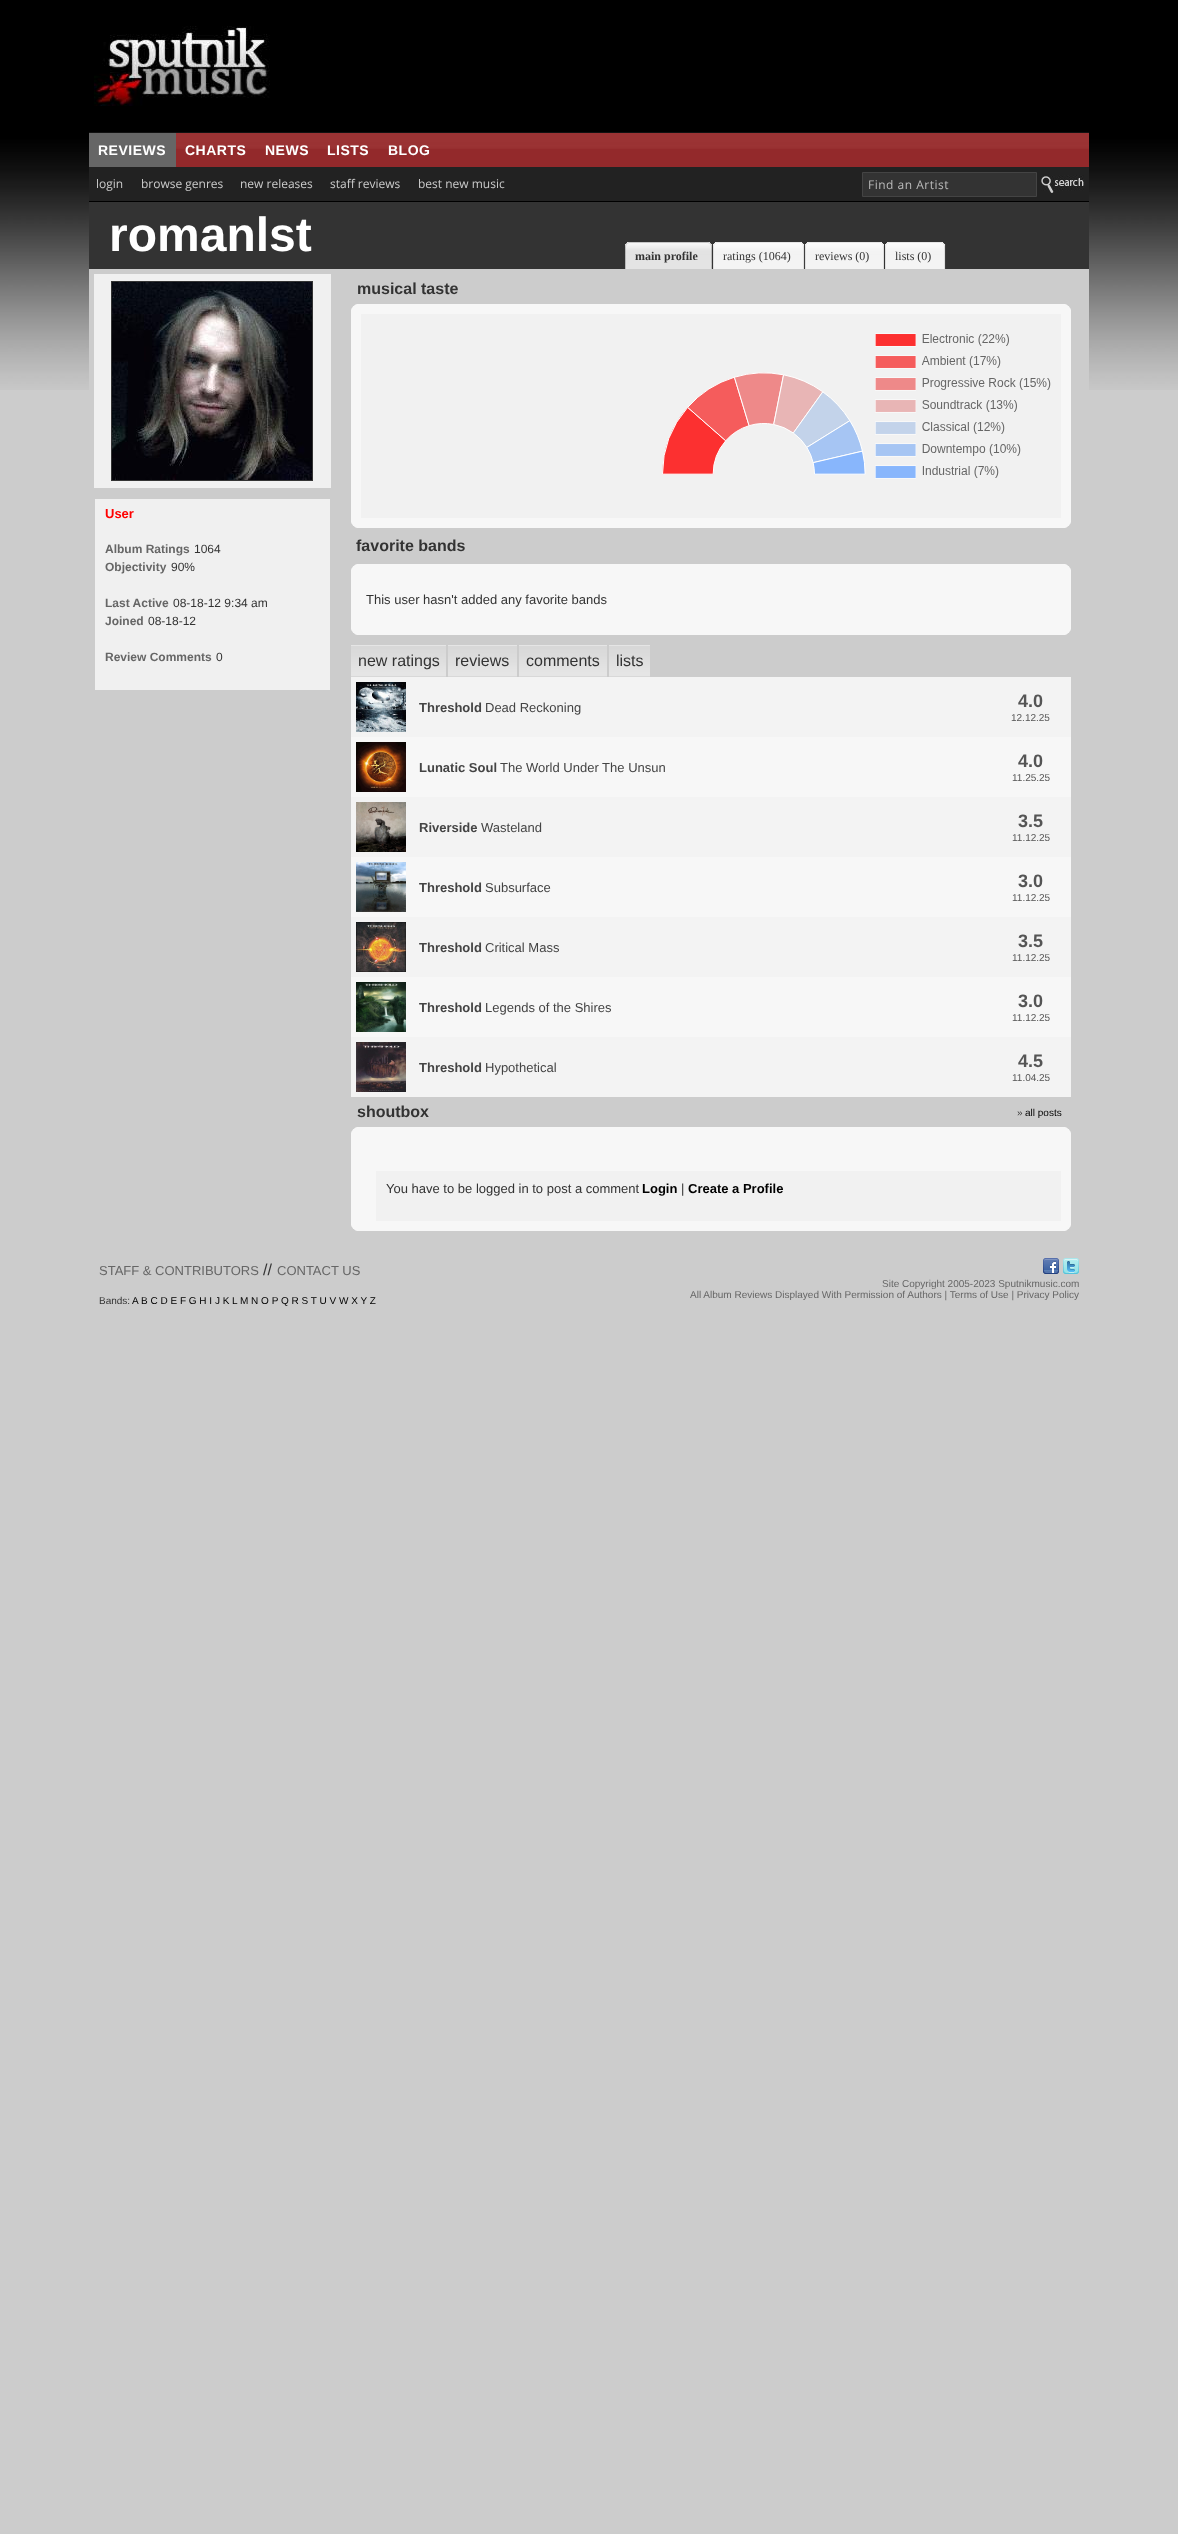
<!DOCTYPE html>
<meta charset="utf-8">
<style>body { margin: 0 } canvas { display: block }</style>
<canvas id="canvas" width="1178" height="2534"></canvas>
<img id="img1" src="images/1.png" hidden>
<img id="img2" src="images/2.png" hidden>
<img id="img3" src="images/3.png" hidden>
<img id="img4" src="images/4.png" hidden>
<img id="img5" src="images/5.png" hidden>
<img id="img6" src="images/6.png" hidden>
<img id="img7" src="images/7.png" hidden>
<img id="img8" src="images/8.png" hidden>
<img id="img9" src="images/9.png" hidden>
<img id="img10" src="images/10.png" hidden>
<img id="img11" src="images/11.png" hidden>
<img id="img12" src="images/12.png" hidden>
<img id="img13" src="images/13.png" hidden>
<img id="img14" src="images/14.png" hidden>
<img id="img15" src="images/15.png" hidden>
<img id="img16" src="images/16.png" hidden>
<img id="img17" src="images/17.png" hidden>
<img id="img18" src="images/18.png" hidden>
<img id="img19" src="images/19.png" hidden>
<img id="img20" src="images/20.png" hidden>
<img id="img21" src="images/21.png" hidden>
<img id="img22" src="images/22.png" hidden>
<img id="img23" src="images/23.png" hidden>
<img id="img24" src="images/24.png" hidden>
<img id="img25" src="images/25.png" hidden>
<img id="img26" src="images/26.png" hidden>
<img id="img27" src="images/27.png" hidden>
<img id="img28" src="images/28.png" hidden>
<img id="img29" src="images/29.png" hidden>
<img id="img30" src="images/30.png" hidden>
<script>
window.onload = function () {
    const canvas = document.getElementById('canvas');
    const context = canvas.getContext('2d');
    context.miterLimit = 4;
    context.fontKerning = 'normal';

    context.fillStyle = 'rgb(204, 204, 204)';
    context.fillRect(0, 0, 1178, 2534);
    context.drawImage(document.getElementById('img1'), 0, 0, 1178, 390);
    context.drawImage(document.getElementById('img2'), 94, 26, 176, 80);
    context.drawImage(document.getElementById('img3'), 176, 133, 613, 34);
    context.fillStyle = 'rgb(17, 17, 17)';
    context.fillRect(89, 132, 1000, 1);
    context.fillStyle = 'rgb(102, 102, 102)';
    context.fillRect(89, 133, 87, 34);
    context.drawImage(document.getElementById('img4'), 789, 133, 300, 34);
    context.fillStyle = 'rgb(34, 34, 34)';
    context.fillRect(89, 167, 1000, 34);
    context.fillStyle = 'rgb(51, 51, 51)';
    context.beginPath();
    context.rect(862.5, 172.5, 174, 24);
    context.fill();
    context.strokeStyle = 'rgb(68, 68, 68)';
    context.stroke();
    context.drawImage(document.getElementById('img5'), 1041, 175, 43, 18);
    context.fillStyle = 'rgb(0, 0, 0)';
    context.fillRect(89, 201, 1000, 1);
    context.fillStyle = 'rgb(204, 204, 204)';
    context.fillRect(89, 269, 1000, 121);
    context.fillStyle = 'rgb(51, 51, 51)';
    context.fillRect(89, 202, 1000, 67);
    context.drawImage(document.getElementById('img6'), 625, 242, 4, 27);
    context.drawImage(document.getElementById('img7'), 629, 242, 83, 27);
    context.drawImage(document.getElementById('img8'), 713, 242, 4, 27);
    context.drawImage(document.getElementById('img9'), 717, 242, 88, 27);
    context.drawImage(document.getElementById('img8'), 805, 242, 4, 27);
    context.drawImage(document.getElementById('img10'), 809, 242, 75, 27);
    context.drawImage(document.getElementById('img8'), 885, 242, 4, 27);
    context.drawImage(document.getElementById('img11'), 889, 242, 57, 27);
    context.fillStyle = 'rgb(240, 240, 240)';
    context.fillRect(94, 274, 237, 214);
    context.strokeStyle = 'rgb(51, 51, 51)';
    context.strokeRect(111.5, 281.5, 201, 199);
    context.drawImage(document.getElementById('img12'), 112, 282, 200, 198);
    context.fillRect(95, 499, 235, 191);
    context.fillStyle = 'rgb(247, 247, 247)';
    context.fillRect(351, 304, 720, 224);
    context.drawImage(document.getElementById('img13'), 1065, 304, 6, 6);
    context.drawImage(document.getElementById('img14'), 351, 304, 6, 6);
    context.fillStyle = 'rgb(241, 241, 241)';
    context.fillRect(361, 314, 700, 204);
    context.drawImage(document.getElementById('img15'), 662, 333, 389, 146);
    context.drawImage(document.getElementById('img16'), 1065, 522, 6, 6);
    context.drawImage(document.getElementById('img17'), 351, 522, 6, 6);
    context.fillStyle = 'rgb(247, 247, 247)';
    context.fillRect(351, 564, 720, 71);
    context.drawImage(document.getElementById('img13'), 1065, 564, 6, 6);
    context.drawImage(document.getElementById('img14'), 351, 564, 6, 6);
    context.drawImage(document.getElementById('img16'), 1065, 629, 6, 6);
    context.drawImage(document.getElementById('img17'), 351, 629, 6, 6);
    context.drawImage(document.getElementById('img18'), 351, 645, 95, 32);
    context.drawImage(document.getElementById('img19'), 448, 645, 69, 32);
    context.drawImage(document.getElementById('img20'), 519, 645, 88, 32);
    context.drawImage(document.getElementById('img21'), 609, 645, 41, 32);
    context.fillRect(351, 737, 720, 300);
    context.fillStyle = 'rgb(243, 243, 243)';
    context.fillRect(351, 677, 720, 60);
    context.drawImage(document.getElementById('img22'), 356, 682, 50, 50);
    context.drawImage(document.getElementById('img23'), 356, 742, 50, 50);
    context.fillRect(351, 797, 720, 60);
    context.drawImage(document.getElementById('img24'), 356, 802, 50, 50);
    context.drawImage(document.getElementById('img25'), 356, 862, 50, 50);
    context.fillRect(351, 917, 720, 60);
    context.drawImage(document.getElementById('img26'), 356, 922, 50, 50);
    context.drawImage(document.getElementById('img27'), 356, 982, 50, 50);
    context.fillRect(351, 1037, 720, 60);
    context.drawImage(document.getElementById('img28'), 356, 1042, 50, 50);
    context.fillStyle = 'rgb(247, 247, 247)';
    context.fillRect(351, 1127, 720, 104);
    context.drawImage(document.getElementById('img13'), 1065, 1127, 6, 6);
    context.drawImage(document.getElementById('img14'), 351, 1127, 6, 6);
    context.fillStyle = 'rgb(241, 241, 241)';
    context.fillRect(376, 1171, 685, 50);
    context.drawImage(document.getElementById('img16'), 1065, 1225, 6, 6);
    context.drawImage(document.getElementById('img17'), 351, 1225, 6, 6);
    context.drawImage(document.getElementById('img29'), 1043, 1258, 16, 16);
    context.drawImage(document.getElementById('img30'), 1063, 1258, 16, 16);
    context.letterSpacing = '0.5px';
    context.font = 'bold 14px Liberation Sans';
    context.fillStyle = 'rgb(255, 255, 255)';
    context.fillText('REVIEWS', 98, 155);
    context.fillText('CHARTS', 185, 155);
    context.fillText('NEWS', 265, 155);
    context.fillText('LISTS', 327, 155);
    context.fillText('BLOG', 388, 155);
    context.letterSpacing = '0px';
    context.font = '12px Open Sans';
    context.fillStyle = 'rgb(204, 204, 204)';
    context.fillText('login', 96, 188);
    context.fillText('browse genres', 141, 188);
    context.fillText('new releases', 240, 188);
    context.fillText('staff reviews', 330, 188);
    context.fillText('best new music', 418, 188);
    context.letterSpacing = '0.5px';
    context.fillStyle = 'rgb(187, 187, 187)';
    context.fillText('Find an Artist', 868, 189);
    context.letterSpacing = '0px';
    context.font = 'bold 48px Liberation Sans';
    context.fillStyle = 'rgb(255, 255, 255)';
    context.fillText('romanlst', 109, 251);
    context.font = 'bold 12px Liberation Serif';
    context.fillStyle = 'rgb(51, 51, 51)';
    context.fillText('main profile', 635, 260);
    context.font = '12px Liberation Serif';
    context.fillText('ratings (1064)', 723, 260);
    context.fillText('reviews (0)', 815, 260);
    context.fillText('lists (0)', 895, 260);
    context.font = 'bold 13px Liberation Sans';
    context.fillStyle = 'rgb(255, 0, 0)';
    context.fillText('User', 105, 518);
    context.font = 'bold 12px Liberation Sans';
    context.fillStyle = 'rgb(102, 102, 102)';
    context.fillText('Album Ratings', 105, 553);
    context.font = '12px Liberation Sans';
    context.fillStyle = 'rgb(51, 51, 51)';
    context.fillText('1064', 194, 553);
    context.font = 'bold 12px Liberation Sans';
    context.fillStyle = 'rgb(102, 102, 102)';
    context.fillText('Objectivity', 105, 571);
    context.font = '12px Liberation Sans';
    context.fillStyle = 'rgb(51, 51, 51)';
    context.fillText('90%', 171, 571);
    context.font = 'bold 12px Liberation Sans';
    context.fillStyle = 'rgb(102, 102, 102)';
    context.fillText('Last Active', 105, 607);
    context.font = '12px Liberation Sans';
    context.fillStyle = 'rgb(51, 51, 51)';
    context.fillText('08-18-12 9:34 am', 173, 607);
    context.font = 'bold 12px Liberation Sans';
    context.fillStyle = 'rgb(102, 102, 102)';
    context.fillText('Joined', 105, 625);
    context.font = '12px Liberation Sans';
    context.fillStyle = 'rgb(51, 51, 51)';
    context.fillText('08-18-12', 148, 625);
    context.font = 'bold 12px Liberation Sans';
    context.fillStyle = 'rgb(102, 102, 102)';
    context.fillText('Review Comments', 105, 661);
    context.font = '12px Liberation Sans';
    context.fillStyle = 'rgb(51, 51, 51)';
    context.fillText('0', 216, 661);
    context.font = 'bold 16px Liberation Sans';
    context.fillText('musical taste', 357, 294);
    context.fillText('favorite bands', 356, 551);
    context.font = '13px Liberation Sans';
    context.fillText('This user hasn\'t added any favorite bands', 366, 604);
    context.font = '16px Liberation Sans';
    context.fillText('new ratings', 358, 666);
    context.fillText('reviews', 455, 666);
    context.fillText('comments', 526, 666);
    context.fillText('lists', 616, 666);
    context.font = 'bold 13px Liberation Sans';
    context.fillStyle = 'rgb(68, 68, 68)';
    context.fillText('Threshold', 419, 712);
    context.font = '13px Liberation Sans';
    context.fillText('Dead Reckoning', 485, 712);
    context.font = 'bold 18px Liberation Sans';
    context.fillStyle = 'rgb(85, 85, 85)';
    context.fillText('4.0', 1018, 707);
    context.font = '10px Liberation Sans';
    context.fillText('12.12.25', 1011, 721);
    context.font = 'bold 13px Liberation Sans';
    context.fillStyle = 'rgb(68, 68, 68)';
    context.fillText('Lunatic Soul', 419, 772);
    context.font = '13px Liberation Sans';
    context.fillText('The World Under The Unsun', 500, 772);
    context.font = 'bold 18px Liberation Sans';
    context.fillStyle = 'rgb(85, 85, 85)';
    context.fillText('4.0', 1018, 767);
    context.font = '10px Liberation Sans';
    context.fillText('11.25.25', 1012, 781);
    context.font = 'bold 13px Liberation Sans';
    context.fillStyle = 'rgb(68, 68, 68)';
    context.fillText('Riverside', 419, 832);
    context.font = '13px Liberation Sans';
    context.fillText('Wasteland', 481, 832);
    context.font = 'bold 18px Liberation Sans';
    context.fillStyle = 'rgb(85, 85, 85)';
    context.fillText('3.5', 1018, 827);
    context.font = '10px Liberation Sans';
    context.fillText('11.12.25', 1012, 841);
    context.font = 'bold 13px Liberation Sans';
    context.fillStyle = 'rgb(68, 68, 68)';
    context.fillText('Threshold', 419, 892);
    context.font = '13px Liberation Sans';
    context.fillText('Subsurface', 485, 892);
    context.font = 'bold 18px Liberation Sans';
    context.fillStyle = 'rgb(85, 85, 85)';
    context.fillText('3.0', 1018, 887);
    context.font = '10px Liberation Sans';
    context.fillText('11.12.25', 1012, 901);
    context.font = 'bold 13px Liberation Sans';
    context.fillStyle = 'rgb(68, 68, 68)';
    context.fillText('Threshold', 419, 952);
    context.font = '13px Liberation Sans';
    context.fillText('Critical Mass', 485, 952);
    context.font = 'bold 18px Liberation Sans';
    context.fillStyle = 'rgb(85, 85, 85)';
    context.fillText('3.5', 1018, 947);
    context.font = '10px Liberation Sans';
    context.fillText('11.12.25', 1012, 961);
    context.font = 'bold 13px Liberation Sans';
    context.fillStyle = 'rgb(68, 68, 68)';
    context.fillText('Threshold', 419, 1012);
    context.font = '13px Liberation Sans';
    context.fillText('Legends of the Shires', 485, 1012);
    context.font = 'bold 18px Liberation Sans';
    context.fillStyle = 'rgb(85, 85, 85)';
    context.fillText('3.0', 1018, 1007);
    context.font = '10px Liberation Sans';
    context.fillText('11.12.25', 1012, 1021);
    context.font = 'bold 13px Liberation Sans';
    context.fillStyle = 'rgb(68, 68, 68)';
    context.fillText('Threshold', 419, 1072);
    context.font = '13px Liberation Sans';
    context.fillText('Hypothetical', 485, 1072);
    context.font = 'bold 18px Liberation Sans';
    context.fillStyle = 'rgb(85, 85, 85)';
    context.fillText('4.5', 1018, 1067);
    context.font = '10px Liberation Sans';
    context.fillText('11.04.25', 1012, 1081);
    context.font = 'bold 16px Liberation Sans';
    context.fillStyle = 'rgb(51, 51, 51)';
    context.fillText('shoutbox', 357, 1117);
    context.font = '10px Liberation Sans';
    context.fillText('»', 1017, 1116);
    context.fillStyle = 'rgb(0, 0, 0)';
    context.fillText('all posts', 1025, 1116);
    context.font = '13px Liberation Sans';
    context.fillStyle = 'rgb(51, 51, 51)';
    context.fillText('You have to be logged in to post a comment', 386, 1193);
    context.font = 'bold 13px Liberation Sans';
    context.fillStyle = 'rgb(0, 0, 0)';
    context.fillText('Login', 642, 1193);
    context.font = '13px Liberation Sans';
    context.fillStyle = 'rgb(51, 51, 51)';
    context.fillText('|', 681, 1193);
    context.font = 'bold 13px Liberation Sans';
    context.fillStyle = 'rgb(0, 0, 0)';
    context.fillText('Create a Profile', 688, 1193);
    context.font = '13px Liberation Sans';
    context.fillStyle = 'rgb(102, 102, 102)';
    context.fillText('STAFF & CONTRIBUTORS', 99, 1275);
    context.font = '16px Liberation Sans';
    context.fillStyle = 'rgb(51, 51, 51)';
    context.fillText('//', 263, 1275);
    context.font = '13px Liberation Sans';
    context.fillStyle = 'rgb(102, 102, 102)';
    context.fillText('CONTACT US', 277, 1275);
    context.font = '10px Liberation Sans';
    context.fillStyle = 'rgb(51, 51, 51)';
    context.fillText('Bands:', 99, 1304);
    context.fillStyle = 'rgb(0, 0, 0)';
    context.fillText('A', 132, 1304);
    context.fillText('B C D E F G H I J K L', 141, 1304);
    context.fillText('M N O P Q R S T U V W X Y Z', 240, 1304);
    context.fillStyle = 'rgb(102, 102, 102)';
    context.fillText('Site Copyright 2005-2023 Sputnikmusic.com', 882, 1287);
    context.fillText('All Album Reviews Displayed With Permission of Authors | Terms of Use | Privacy Policy', 690, 1298);
};
</script>
